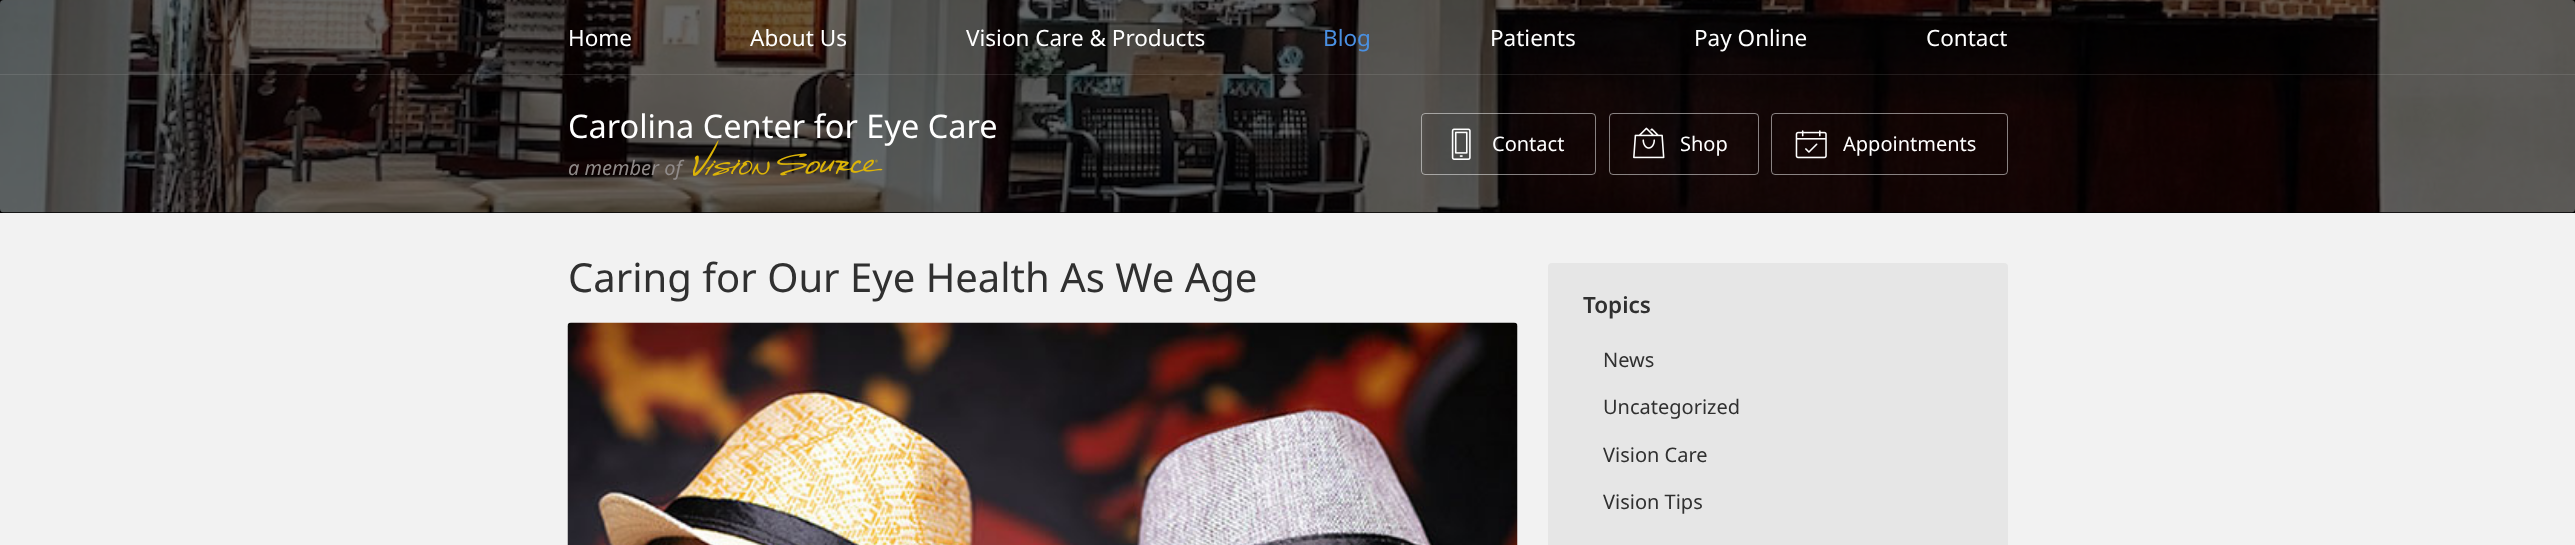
<!DOCTYPE html>
<meta charset="utf-8">
<style>body { margin: 0 } canvas { display: block }</style>
<canvas id="canvas" width="2575" height="545"></canvas>
<img id="img1" src="images/1.png" hidden>
<img id="img2" src="images/3.png" hidden>
<img id="img3" src="images/4.png" hidden>
<img id="img4" src="images/5.png" hidden>
<img id="img5" src="images/6.png" hidden>
<img id="img6" src="images/2.png" hidden>
<script>
window.onload = function () {
    const canvas = document.getElementById('canvas');
    const context = canvas.getContext('2d');
    context.miterLimit = 4;
    context.fontKerning = 'normal';

    context.fillStyle = 'rgb(242, 242, 242)';
    context.fillRect(0, 0, 2575, 545);
    context.fillStyle = 'rgb(0, 0, 0)';
    context.fillRect(0, 0, 2575, 213);
    context.drawImage(document.getElementById('img1'), 0, 0, 2575, 213);
    context.fillStyle = 'rgba(255, 255, 255, 0.1)';
    context.fillRect(0, 74, 2575, 1);
    context.fillStyle = 'rgba(0, 0, 0, 0.05)';
    context.fillRect(1421, 113, 76, 62);
    context.beginPath();
    context.roundRect(1421.5, 113.5, 174, 61, 3.5);
    context.strokeStyle = 'rgba(255, 255, 255, 0.5)';
    context.stroke();
    context.drawImage(document.getElementById('img2'), 1451, 128, 20, 32);
    context.beginPath();
    context.roundRect(1609.5, 113.5, 149, 61, 3.5);
    context.stroke();
    context.drawImage(document.getElementById('img3'), 1633, 127, 32, 32);
    context.beginPath();
    context.roundRect(1771.5, 113.5, 236, 61, 3.5);
    context.stroke();
    context.drawImage(document.getElementById('img4'), 1795, 130, 32, 29);
    context.drawImage(document.getElementById('img5'), 567, 322, 951, 223);
    context.fillStyle = 'rgb(230, 230, 230)';
    context.beginPath();
    context.roundRect(1548, 263, 460, 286, 4);
    context.fill();
    context.font = '22.5px Noto Sans';
    context.fillStyle = 'rgb(255, 255, 255)';
    context.fillText('Home', 568, 46);
    context.fillText('About Us', 750, 46);
    context.fillText('Vision Care & Products', 966, 46);
    context.fillStyle = 'rgb(74, 144, 226)';
    context.fillText('Blog', 1323, 46);
    context.fillStyle = 'rgb(255, 255, 255)';
    context.fillText('Patients', 1490, 46);
    context.fillText('Pay Online', 1694, 46);
    context.fillText('Contact', 1926, 46);
    context.font = '32.5px Noto Sans';
    context.fillText('Carolina Center for Eye Care', 568, 138);
    context.font = 'italic 20px Noto Sans';
    context.fillStyle = 'rgb(144, 139, 138)';
    context.fillText('a member of', 568, 175);
    context.drawImage(document.getElementById('img6'), 693, 140, 190, 36);
    context.font = '20px Noto Sans';
    context.fillStyle = 'rgb(255, 255, 255)';
    context.fillText('Contact', 1492, 151);
    context.fillText('Shop', 1680, 151);
    context.fillText('Appointments', 1843, 151);
    context.font = '40px Noto Sans';
    context.fillStyle = 'rgb(48, 48, 48)';
    context.fillText('Caring for Our Eye Health As We Age', 568, 292);
    context.font = '600 22.5px Noto Sans';
    context.fillText('Topics', 1583, 313);
    context.font = '20px Noto Sans';
    context.fillText('News', 1603, 367);
    context.fillText('Uncategorized', 1603, 414);
    context.fillText('Vision Care', 1603, 462);
    context.fillText('Vision Tips', 1603, 509);
};
</script>
